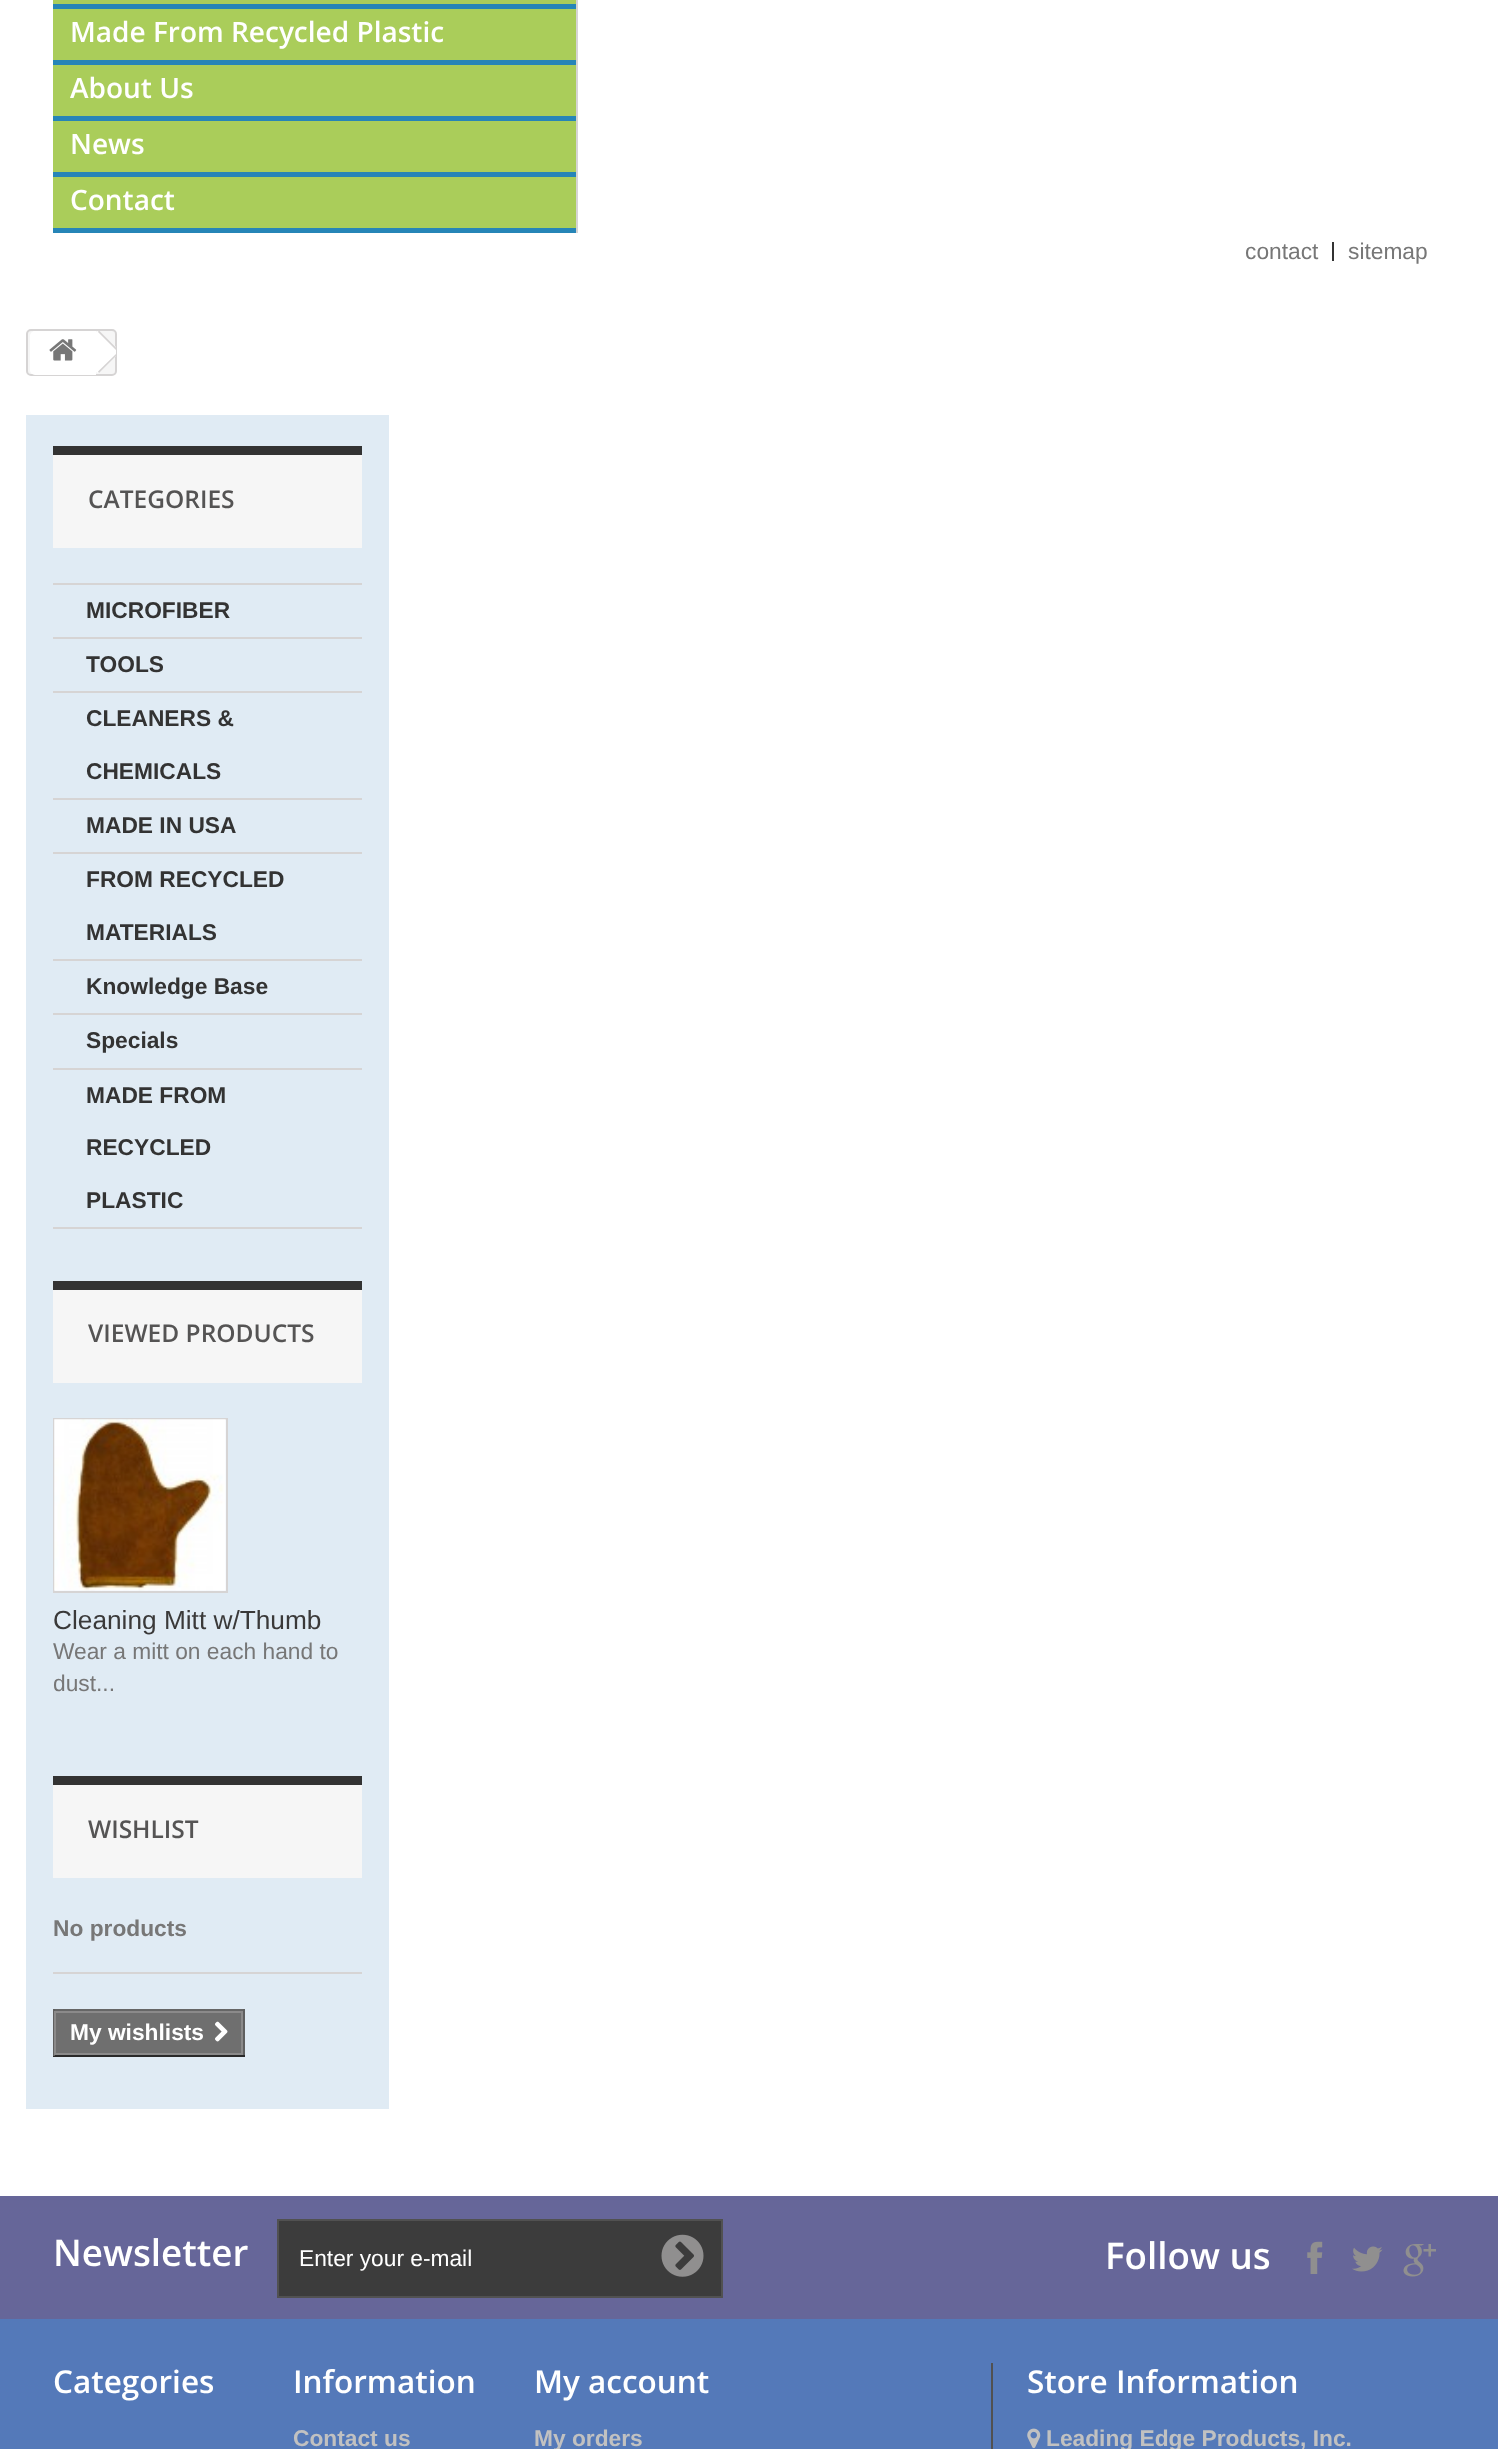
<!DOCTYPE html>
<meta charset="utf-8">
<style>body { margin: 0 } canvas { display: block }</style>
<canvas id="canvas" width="1498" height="2449"></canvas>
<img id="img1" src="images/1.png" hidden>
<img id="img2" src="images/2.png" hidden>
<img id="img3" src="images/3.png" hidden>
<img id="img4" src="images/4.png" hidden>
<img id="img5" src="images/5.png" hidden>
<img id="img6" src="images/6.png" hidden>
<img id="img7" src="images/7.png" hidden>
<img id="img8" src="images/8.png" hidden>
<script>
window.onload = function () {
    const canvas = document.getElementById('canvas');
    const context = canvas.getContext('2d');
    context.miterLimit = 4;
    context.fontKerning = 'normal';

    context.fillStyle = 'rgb(255, 255, 255)';
    context.fillRect(0, 0, 1498, 2449);
    context.fillStyle = 'rgb(170, 205, 90)';
    context.fillRect(53, 0, 523, 228);
    context.fillStyle = 'rgb(38, 133, 183)';
    context.fillRect(53, 228, 525, 5);
    context.fillStyle = 'rgb(214, 212, 212)';
    context.fillRect(576, 0, 2, 233);
    context.fillStyle = 'rgb(38, 133, 183)';
    context.fillRect(53, 4, 523, 5);
    context.fillRect(53, 60, 523, 5);
    context.fillRect(53, 116, 523, 5);
    context.fillRect(53, 172, 523, 5);
    context.fillStyle = 'rgb(51, 51, 51)';
    context.fillRect(1332, 242, 2, 19);
    context.fillStyle = 'rgb(246, 246, 246)';
    context.beginPath();
    context.roundRect(27, 330, 89, 45, 4);
    context.fill();
    context.strokeStyle = 'rgb(214, 212, 212)';
    context.lineWidth = 2;
    context.stroke();
    context.fillStyle = 'rgb(255, 255, 255)';
    context.beginPath();
    context.roundRect(30, 331, 66, 44, [5, 0, 0, 5]);
    context.fill();
    context.drawImage(document.getElementById('img1'), 49, 339, 28, 22);
    context.beginPath();
    context.moveTo(100, 332);
    context.lineTo(116, 347);
    context.lineTo(116, 356);
    context.lineTo(103, 369);
    context.bezierCurveTo(98, 374, 98, 374, 93, 369);
    context.lineTo(87, 363);
    context.bezierCurveTo(73, 349, 74, 352, 90, 338);
    context.bezierCurveTo(92, 336, 97, 329, 100, 332);
    context.closePath();
    context.fill();
    context.fillStyle = 'rgb(214, 212, 212)';
    context.beginPath();
    context.moveTo(116, 350);
    context.lineTo(98, 332);
    context.lineTo(98.5, 331);
    context.lineTo(99.5, 331);
    context.lineTo(116, 347.5);
    context.closePath();
    context.moveTo(116, 354);
    context.lineTo(116, 356);
    context.lineTo(99, 373);
    context.lineTo(98, 371.5);
    context.closePath();
    context.fill();
    context.fillStyle = 'rgb(224, 235, 244)';
    context.fillRect(26, 415, 363, 1694);
    context.fillStyle = 'rgb(246, 246, 246)';
    context.fillRect(53, 455, 309, 93);
    context.fillStyle = 'rgb(51, 51, 51)';
    context.fillRect(53, 446, 309, 9);
    context.fillStyle = 'rgb(214, 212, 212)';
    context.fillRect(53, 583, 309, 2);
    context.fillRect(53, 637, 309, 2);
    context.fillRect(53, 691, 309, 2);
    context.fillRect(53, 798, 309, 2);
    context.fillRect(53, 852, 309, 2);
    context.fillRect(53, 959, 309, 2);
    context.fillRect(53, 1013, 309, 2);
    context.fillRect(53, 1068, 309, 2);
    context.fillRect(53, 1227, 309, 2);
    context.fillStyle = 'rgb(246, 246, 246)';
    context.fillRect(53, 1290, 309, 93);
    context.fillStyle = 'rgb(51, 51, 51)';
    context.fillRect(53, 1281, 309, 9);
    context.strokeRect(54, 1419, 173, 173);
    context.drawImage(document.getElementById('img2'), 54, 1419, 172, 172);
    context.fillStyle = 'rgb(246, 246, 246)';
    context.fillRect(53, 1785, 309, 93);
    context.fillStyle = 'rgb(51, 51, 51)';
    context.fillRect(53, 1776, 309, 9);
    context.fillStyle = 'rgb(214, 212, 212)';
    context.fillRect(53, 1972, 309, 2);
    context.fillStyle = 'rgb(111, 111, 111)';
    context.fillRect(56, 2013, 185, 40);
    context.fillStyle = 'rgb(102, 102, 102)';
    context.fillRect(53, 2009, 192, 2);
    context.fillStyle = 'rgb(95, 95, 95)';
    context.fillRect(243, 2009, 2, 47);
    context.fillStyle = 'rgb(41, 41, 41)';
    context.fillRect(53, 2055, 192, 2);
    context.fillStyle = 'rgb(95, 95, 95)';
    context.fillRect(53, 2009, 2, 47);
    context.strokeStyle = 'rgb(139, 138, 138)';
    context.strokeRect(55, 2012, 187, 42);
    context.drawImage(document.getElementById('img3'), 215, 2021, 13, 21);
    context.fillStyle = 'rgb(84, 121, 185)';
    context.fillRect(0, 2319, 1498, 130);
    context.fillStyle = 'rgb(102, 102, 153)';
    context.fillRect(0, 2196, 1498, 123);
    context.fillStyle = 'rgb(60, 60, 60)';
    context.beginPath();
    context.rect(278, 2220, 444, 77);
    context.fill();
    context.strokeStyle = 'rgb(81, 81, 81)';
    context.stroke();
    context.drawImage(document.getElementById('img4'), 661, 2234, 43, 43);
    context.drawImage(document.getElementById('img5'), 1307, 2241, 16, 33);
    context.drawImage(document.getElementById('img6'), 1352, 2246, 31, 26);
    context.drawImage(document.getElementById('img7'), 1403, 2244, 33, 33);
    context.fillStyle = 'rgb(81, 81, 81)';
    context.fillRect(991, 2363, 2, 86);
    context.drawImage(document.getElementById('img8'), 1027, 2428, 14, 21);
    context.font = '600 28px Open Sans';
    context.fillStyle = 'rgb(255, 255, 255)';
    context.fillText('Made From Recycled Plastic', 70, 42);
    context.fillText('About Us', 70, 98);
    context.fillText('News', 70, 154);
    context.fillText('Contact', 70, 210);
    context.font = '22.75px Liberation Sans';
    context.fillStyle = 'rgb(119, 119, 119)';
    context.fillText('contact', 1245, 259);
    context.fillText('sitemap', 1348, 259);
    context.font = '600 24.5px Open Sans';
    context.fillStyle = 'rgb(85, 84, 84)';
    context.fillText('CATEGORIES', 88, 508);
    context.font = 'bold 22.75px Liberation Sans';
    context.fillStyle = 'rgb(51, 51, 51)';
    context.fillText('MICROFIBER', 86, 618);
    context.fillText('TOOLS', 86, 672);
    context.fillText('CLEANERS &', 86, 726);
    context.fillText('CHEMICALS', 86, 779);
    context.fillText('MADE IN USA', 86, 833);
    context.fillText('FROM RECYCLED', 86, 887);
    context.fillText('MATERIALS', 86, 940);
    context.fillText('Knowledge Base', 86, 994);
    context.fillText('Specials', 86, 1048);
    context.fillText('MADE FROM', 86, 1103);
    context.fillText('RECYCLED', 86, 1155);
    context.fillText('PLASTIC', 86, 1208);
    context.font = '600 24.5px Open Sans';
    context.fillStyle = 'rgb(85, 84, 84)';
    context.fillText('VIEWED PRODUCTS', 88, 1342);
    context.font = '26.25px Liberation Sans';
    context.fillStyle = 'rgb(58, 57, 57)';
    context.fillText('Cleaning Mitt w/Thumb', 53, 1629);
    context.font = '22.75px Liberation Sans';
    context.fillStyle = 'rgb(119, 119, 119)';
    context.fillText('Wear a mitt on each hand to', 53, 1659);
    context.fillText('dust...', 53, 1691);
    context.font = '600 24.5px Open Sans';
    context.fillStyle = 'rgb(85, 84, 84)';
    context.fillText('WISHLIST', 88, 1838);
    context.font = 'bold 22.75px Liberation Sans';
    context.fillStyle = 'rgb(119, 119, 119)';
    context.fillText('No products', 53, 1936);
    context.fillStyle = 'rgb(255, 255, 255)';
    context.fillText('My wishlists', 70, 2040);
    context.font = '600 36.75px Open Sans';
    context.fillText('Newsletter', 53, 2266);
    context.font = '22.75px Liberation Sans';
    context.fillText('Enter your e-mail', 299, 2266);
    context.font = '600 36.75px Open Sans';
    context.fillText('Follow us', 1105, 2269);
    context.font = '600 31.5px Open Sans';
    context.fillText('Categories', 53, 2393);
    context.fillText('Information', 293, 2393);
    context.font = 'bold 22.75px Liberation Sans';
    context.fillStyle = 'rgb(193, 193, 193)';
    context.fillText('Contact us', 293, 2446);
    context.font = '600 31.5px Open Sans';
    context.fillStyle = 'rgb(255, 255, 255)';
    context.fillText('My account', 534, 2393);
    context.font = 'bold 22.75px Liberation Sans';
    context.fillStyle = 'rgb(193, 193, 193)';
    context.fillText('My orders', 534, 2446);
    context.font = '600 31.5px Open Sans';
    context.fillStyle = 'rgb(255, 255, 255)';
    context.fillText('Store Information', 1027, 2393);
    context.font = 'bold 22.75px Liberation Sans';
    context.fillStyle = 'rgb(193, 193, 193)';
    context.fillText('Leading Edge Products, Inc.', 1046, 2446);
};
</script>
